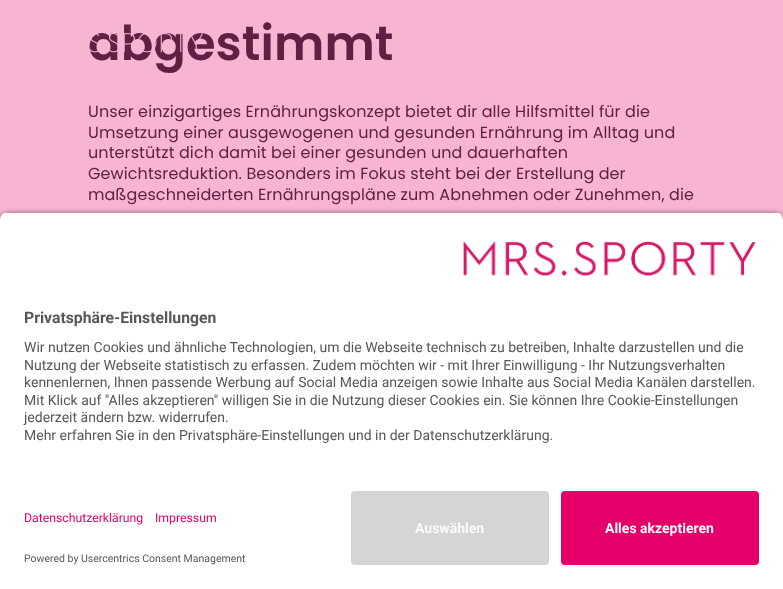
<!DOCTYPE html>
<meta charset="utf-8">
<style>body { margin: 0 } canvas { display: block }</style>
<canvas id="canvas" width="783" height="589"></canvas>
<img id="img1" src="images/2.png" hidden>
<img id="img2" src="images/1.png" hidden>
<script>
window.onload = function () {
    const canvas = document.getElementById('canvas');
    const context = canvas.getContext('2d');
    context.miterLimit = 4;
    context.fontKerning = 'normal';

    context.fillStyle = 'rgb(247, 181, 211)';
    context.fillRect(0, 0, 783, 589);
    context.fillStyle = 'rgba(0, 0, 0, 0.8)';
    context.filter = 'blur(3.5px)';
    context.beginPath();
    context.roundRect(0, 215, 783, 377, 8);
    context.fill();
    context.filter = 'none';
    context.save();
    context.beginPath();
    context.roundRect(0, 212, 783, 271, [8, 8, 0, 0]);
    context.clip();
    context.fillStyle = 'rgb(255, 255, 255)';
    context.fillRect(0, 213, 783, 270);
    context.restore();
    context.drawImage(document.getElementById('img1'), 463, 241, 293, 35);
    context.fillStyle = 'rgb(255, 255, 255)';
    context.fillRect(0, 483, 783, 106);
    context.fillStyle = 'rgb(213, 213, 213)';
    context.beginPath();
    context.roundRect(351, 491, 198, 74, 4);
    context.fill();
    context.fillStyle = 'rgb(229, 0, 105)';
    context.beginPath();
    context.roundRect(561, 491, 198, 74, 4);
    context.fill();
    context.letterSpacing = '0.1px';
    context.font = '600 48px Poppins';
    context.fillStyle = 'rgb(95, 32, 67)';
    context.fillText('abgestimmt', 88, 60);
    context.font = '16px Poppins';
    context.fillText('Unser einzigartiges Ernährungskonzept bietet dir alle Hilfsmittel für die', 88, 117);
    context.fillText('Umsetzung einer ausgewogenen und gesunden Ernährung im Alltag und', 88, 138);
    context.fillText('unterstützt dich damit bei einer gesunden und dauerhaften', 88, 158);
    context.fillText('Gewichtsreduktion. Besonders im Fokus steht bei der Erstellung der', 88, 179);
    context.fillText('maßgeschneiderten Ernährungspläne zum Abnehmen oder Zunehmen, die', 88, 200);
    context.drawImage(document.getElementById('img2'), 90, 33, 113, 20);
    context.letterSpacing = '0px';
    context.font = 'bold 15.75px Roboto';
    context.fillStyle = 'rgb(87, 87, 86)';
    context.fillText('Privatsphäre-Einstellungen', 24, 323);
    context.font = '14px Roboto';
    context.fillText('Wir nutzen Cookies und ähnliche Technologien, um die Webseite technisch zu betreiben, Inhalte darzustellen und die', 24, 352);
    context.fillText('Nutzung der Webseite statistisch zu erfassen. Zudem möchten wir - mit Ihrer Einwilligung - Ihr Nutzungsverhalten', 24, 370);
    context.fillText('kennenlernen, Ihnen passende Werbung auf Social Media anzeigen sowie Inhalte aus Social Media Kanälen darstellen.', 24, 387);
    context.fillText('Mit Klick auf "Alles akzeptieren" willigen Sie in die Nutzung dieser Cookies ein. Sie können Ihre Cookie-Einstellungen', 24, 405);
    context.fillText('jederzeit ändern bzw. widerrufen.', 24, 422);
    context.fillText('Mehr erfahren Sie in den Privatsphäre-Einstellungen und in der Datenschutzerklärung.', 24, 440);
    context.font = '12.25px Roboto';
    context.fillStyle = 'rgb(229, 0, 105)';
    context.fillText('Datenschutzerklärung', 24, 522);
    context.fillText('Impressum', 155, 522);
    context.font = '10.5px Roboto';
    context.fillStyle = 'rgb(87, 87, 86)';
    context.fillText('Powered by Usercentrics Consent Management', 24, 562);
    context.font = 'bold 14px Roboto';
    context.fillStyle = 'rgb(250, 250, 250)';
    context.fillText('Auswählen', 415, 533);
    context.fillText('Alles akzeptieren', 605, 533);
};
</script>
